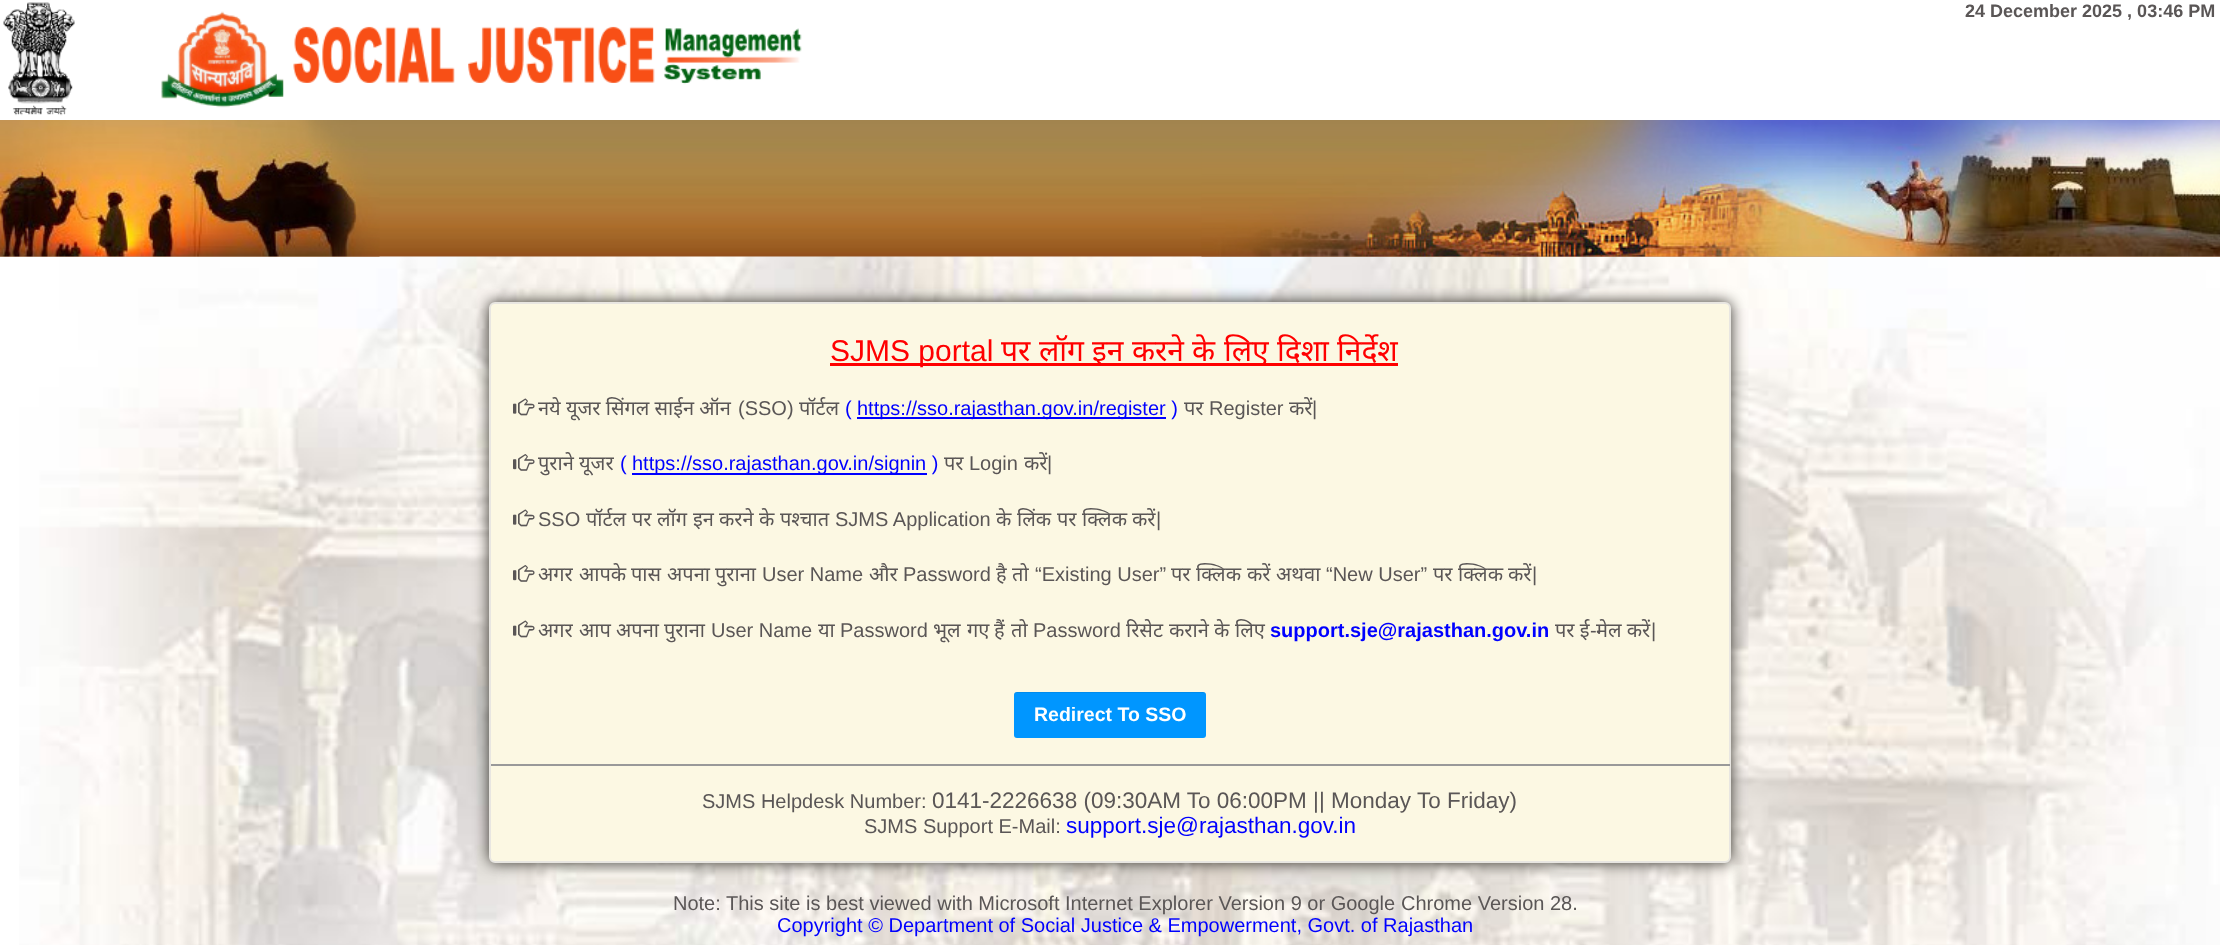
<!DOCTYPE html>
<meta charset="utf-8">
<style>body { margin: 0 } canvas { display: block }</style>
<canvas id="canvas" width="2220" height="945"></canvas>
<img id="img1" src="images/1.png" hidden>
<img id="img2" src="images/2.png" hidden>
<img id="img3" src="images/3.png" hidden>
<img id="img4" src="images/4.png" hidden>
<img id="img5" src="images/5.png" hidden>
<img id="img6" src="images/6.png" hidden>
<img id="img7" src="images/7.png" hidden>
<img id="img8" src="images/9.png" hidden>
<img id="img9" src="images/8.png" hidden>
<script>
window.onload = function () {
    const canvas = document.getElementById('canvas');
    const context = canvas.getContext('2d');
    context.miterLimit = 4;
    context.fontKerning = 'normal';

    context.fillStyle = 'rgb(255, 255, 255)';
    context.fillRect(0, 0, 2220, 945);
    context.drawImage(document.getElementById('img1'), 19, 256, 2201, 689);
    context.drawImage(document.getElementById('img2'), 3, 2, 72, 114);
    context.drawImage(document.getElementById('img3'), 161, 11, 641, 97);
    context.drawImage(document.getElementById('img4'), 0, 120, 2220, 137);
    context.drawImage(document.getElementById('img5'), 0, 120, 380, 137);
    context.drawImage(document.getElementById('img6'), 1201, 120, 1019, 137);
    context.fillStyle = 'rgb(53, 50, 43)';
    context.filter = 'blur(7.5px)';
    context.beginPath();
    context.roundRect(489, 302, 1242, 561, 6);
    context.fill();
    context.filter = 'none';
    context.fillStyle = 'rgb(252, 248, 227)';
    context.beginPath();
    context.roundRect(490, 303, 1240, 559, 5);
    context.fill();
    context.strokeStyle = 'rgb(232, 230, 225)';
    context.lineWidth = 2;
    context.stroke();
    context.fillStyle = 'rgb(255, 0, 0)';
    context.fillRect(830, 363, 568, 3);
    context.drawImage(document.getElementById('img7'), 513, 398, 22, 18);
    context.fillStyle = 'rgb(0, 0, 255)';
    context.fillRect(857, 417, 309, 2);
    context.fillRect(632, 473, 295, 2);
    context.drawImage(document.getElementById('img7'), 513, 509, 22, 18);
    context.drawImage(document.getElementById('img8'), 513, 565, 22, 17);
    context.drawImage(document.getElementById('img7'), 513, 620, 22, 18);
    context.fillStyle = 'rgb(0, 150, 255)';
    context.beginPath();
    context.roundRect(1014, 692, 192, 46, 3);
    context.fill();
    context.fillStyle = 'rgba(0, 0, 0, 0.07)';
    context.beginPath();
    context.moveTo(1017, 693);
    context.lineTo(1203, 693);
    context.bezierCurveTo(1205, 693, 1206, 694, 1206, 696);
    context.bezierCurveTo(1206, 694, 1205, 692, 1203, 692);
    context.lineTo(1017, 692);
    context.bezierCurveTo(1015, 692, 1014, 694, 1014, 696);
    context.bezierCurveTo(1014, 694, 1015, 693, 1017, 693);
    context.closePath();
    context.fill();
    context.fillStyle = 'rgb(153, 153, 153)';
    context.fillRect(491, 764, 1239, 2);
    context.font = 'bold 18px Liberation Sans';
    context.fillStyle = 'rgb(90, 86, 86)';
    context.fillText('24 December 2025 , 03:46 PM', 1965, 17);
    context.font = '30px Liberation Sans';
    context.fillStyle = 'rgb(255, 0, 0)';
    context.fillText('SJMS portal', 830, 361);
    context.font = '30px Noto Sans';
    context.fillText('पर', 1001, 361);
    context.fillText('लॉग', 1039, 361);
    context.fillText('इन', 1092, 361);
    context.fillText('करने', 1132, 361);
    context.fillText('के', 1192, 361);
    context.fillText('लिए', 1224, 361);
    context.fillText('दिशा', 1277, 361);
    context.fillText('निर्देश', 1337, 361);
    context.font = '20px Noto Sans';
    context.fillStyle = 'rgb(90, 86, 86)';
    context.fillText('नये यूजर सिंगल साईन ऑन', 538, 415);
    context.font = '20px Liberation Sans';
    context.fillText('(SSO)', 738, 415);
    context.font = '20px Noto Sans';
    context.fillText('पॉर्टल', 799, 415);
    context.font = '20px Liberation Sans';
    context.fillStyle = 'rgb(0, 0, 255)';
    context.fillText('(', 845, 415);
    context.fillText('https://sso.rajasthan.gov.in/register )', 857, 415);
    context.font = '20px Noto Sans';
    context.fillStyle = 'rgb(90, 86, 86)';
    context.fillText('पर', 1184, 415);
    context.font = '20px Liberation Sans';
    context.fillText('Register', 1209, 415);
    context.font = '20px Noto Sans';
    context.fillText('करें', 1289, 415);
    context.font = '20px Liberation Sans';
    context.fillText('|', 1312, 415);
    context.font = '20px Noto Sans';
    context.fillText('पुराने यूजर', 538, 470);
    context.drawImage(document.getElementById('img9'), 513, 454, 22, 17);
    context.font = '20px Liberation Sans';
    context.fillStyle = 'rgb(0, 0, 255)';
    context.fillText('(', 620, 470);
    context.fillText('https://sso.rajasthan.gov.in/signin )', 632, 470);
    context.font = '20px Noto Sans';
    context.fillStyle = 'rgb(90, 86, 86)';
    context.fillText('पर', 944, 470);
    context.font = '20px Liberation Sans';
    context.fillText('Login', 969, 470);
    context.font = '20px Noto Sans';
    context.fillText('करें', 1024, 470);
    context.font = '20px Liberation Sans';
    context.fillText('|', 1047, 470);
    context.fillText('SSO', 538, 526);
    context.font = '20px Noto Sans';
    context.fillText('पॉर्टल', 586, 526);
    context.fillText('पर', 632, 526);
    context.fillText('लॉग', 657, 526);
    context.fillText('इन', 693, 526);
    context.fillText('करने', 719, 526);
    context.fillText('के', 759, 526);
    context.fillText('पश्चात', 780, 526);
    context.font = '20px Liberation Sans';
    context.fillText('SJMS Application', 835, 526);
    context.font = '20px Noto Sans';
    context.fillText('के', 996, 526);
    context.fillText('लिंक', 1017, 526);
    context.fillText('पर', 1057, 526);
    context.fillText('क्लिक', 1082, 526);
    context.fillText('करें', 1132, 526);
    context.font = '20px Liberation Sans';
    context.fillText('|', 1156, 526);
    context.font = '20px Noto Sans';
    context.fillText('अगर', 538, 581);
    context.fillText('आपके', 579, 581);
    context.fillText('पास', 631, 581);
    context.fillText('अपना', 667, 581);
    context.fillText('पुराना', 715, 581);
    context.font = '20px Liberation Sans';
    context.fillText('User Name', 762, 581);
    context.font = '20px Noto Sans';
    context.fillText('और', 869, 581);
    context.font = '20px Liberation Sans';
    context.fillText('Password', 903, 581);
    context.font = '20px Noto Sans';
    context.fillText('है', 996, 581);
    context.fillText('तो', 1012, 581);
    context.font = '20px Liberation Sans';
    context.fillText('“Existing User”', 1035, 581);
    context.font = '20px Noto Sans';
    context.fillText('पर', 1171, 581);
    context.fillText('क्लिक', 1196, 581);
    context.fillText('करें', 1247, 581);
    context.fillText('अथवा', 1276, 581);
    context.font = '20px Liberation Sans';
    context.fillText('“New User”', 1326, 581);
    context.font = '20px Noto Sans';
    context.fillText('पर', 1433, 581);
    context.fillText('क्लिक', 1458, 581);
    context.fillText('करें', 1508, 581);
    context.font = '20px Liberation Sans';
    context.fillText('|', 1532, 581);
    context.font = '20px Noto Sans';
    context.fillText('अगर', 538, 637);
    context.fillText('आप', 579, 637);
    context.fillText('अपना', 616, 637);
    context.fillText('पुराना', 664, 637);
    context.font = '20px Liberation Sans';
    context.fillText('User Name', 711, 637);
    context.font = '20px Noto Sans';
    context.fillText('या', 818, 637);
    context.font = '20px Liberation Sans';
    context.fillText('Password', 840, 637);
    context.font = '20px Noto Sans';
    context.fillText('भूल', 933, 637);
    context.fillText('गए', 967, 637);
    context.fillText('हैं', 994, 637);
    context.fillText('तो', 1011, 637);
    context.font = '20px Liberation Sans';
    context.fillText('Password', 1033, 637);
    context.font = '20px Noto Sans';
    context.fillText('रिसेट', 1126, 637);
    context.fillText('कराने', 1169, 637);
    context.fillText('के', 1214, 637);
    context.fillText('लिए', 1235, 637);
    context.font = 'bold 20px Liberation Sans';
    context.fillStyle = 'rgb(0, 0, 255)';
    context.fillText('support.sje@rajasthan.gov.in', 1270, 637);
    context.font = '20px Noto Sans';
    context.fillStyle = 'rgb(90, 86, 86)';
    context.fillText('पर ई', 1555, 637);
    context.font = '20px Liberation Sans';
    context.fillText('|', 1651, 637);
    context.fillText('-', 1590, 637);
    context.font = '20px Noto Sans';
    context.fillText('मेल करें', 1596, 637);
    context.font = 'bold 19.5px Liberation Sans';
    context.fillStyle = 'rgb(255, 255, 255)';
    context.fillText('Redirect To SSO', 1034, 721);
    context.font = '20px Liberation Sans';
    context.fillStyle = 'rgb(90, 86, 86)';
    context.fillText('SJMS Helpdesk Number:', 702, 808);
    context.font = '22.5px Liberation Sans';
    context.fillText('0141-2226638 (09:30AM To 06:00PM || Monday To Friday)', 932, 808);
    context.font = '20px Liberation Sans';
    context.fillText('SJMS Support E-Mail:', 864, 833);
    context.font = '22.5px Liberation Sans';
    context.fillStyle = 'rgb(0, 0, 255)';
    context.fillText('support.sje@rajasthan.gov.in', 1066, 833);
    context.font = '20px Liberation Sans';
    context.fillStyle = 'rgb(90, 86, 86)';
    context.fillText('Note: This site is best viewed with Microsoft Internet Explorer Version 9 or Google', 673, 910);
    context.fillText('Chrome Version 28.', 1401, 910);
    context.fillStyle = 'rgb(0, 0, 255)';
    context.fillText('Copyright © Department of Social Justice & Empowerment, Govt. of Rajasthan', 777, 932);
};
</script>
